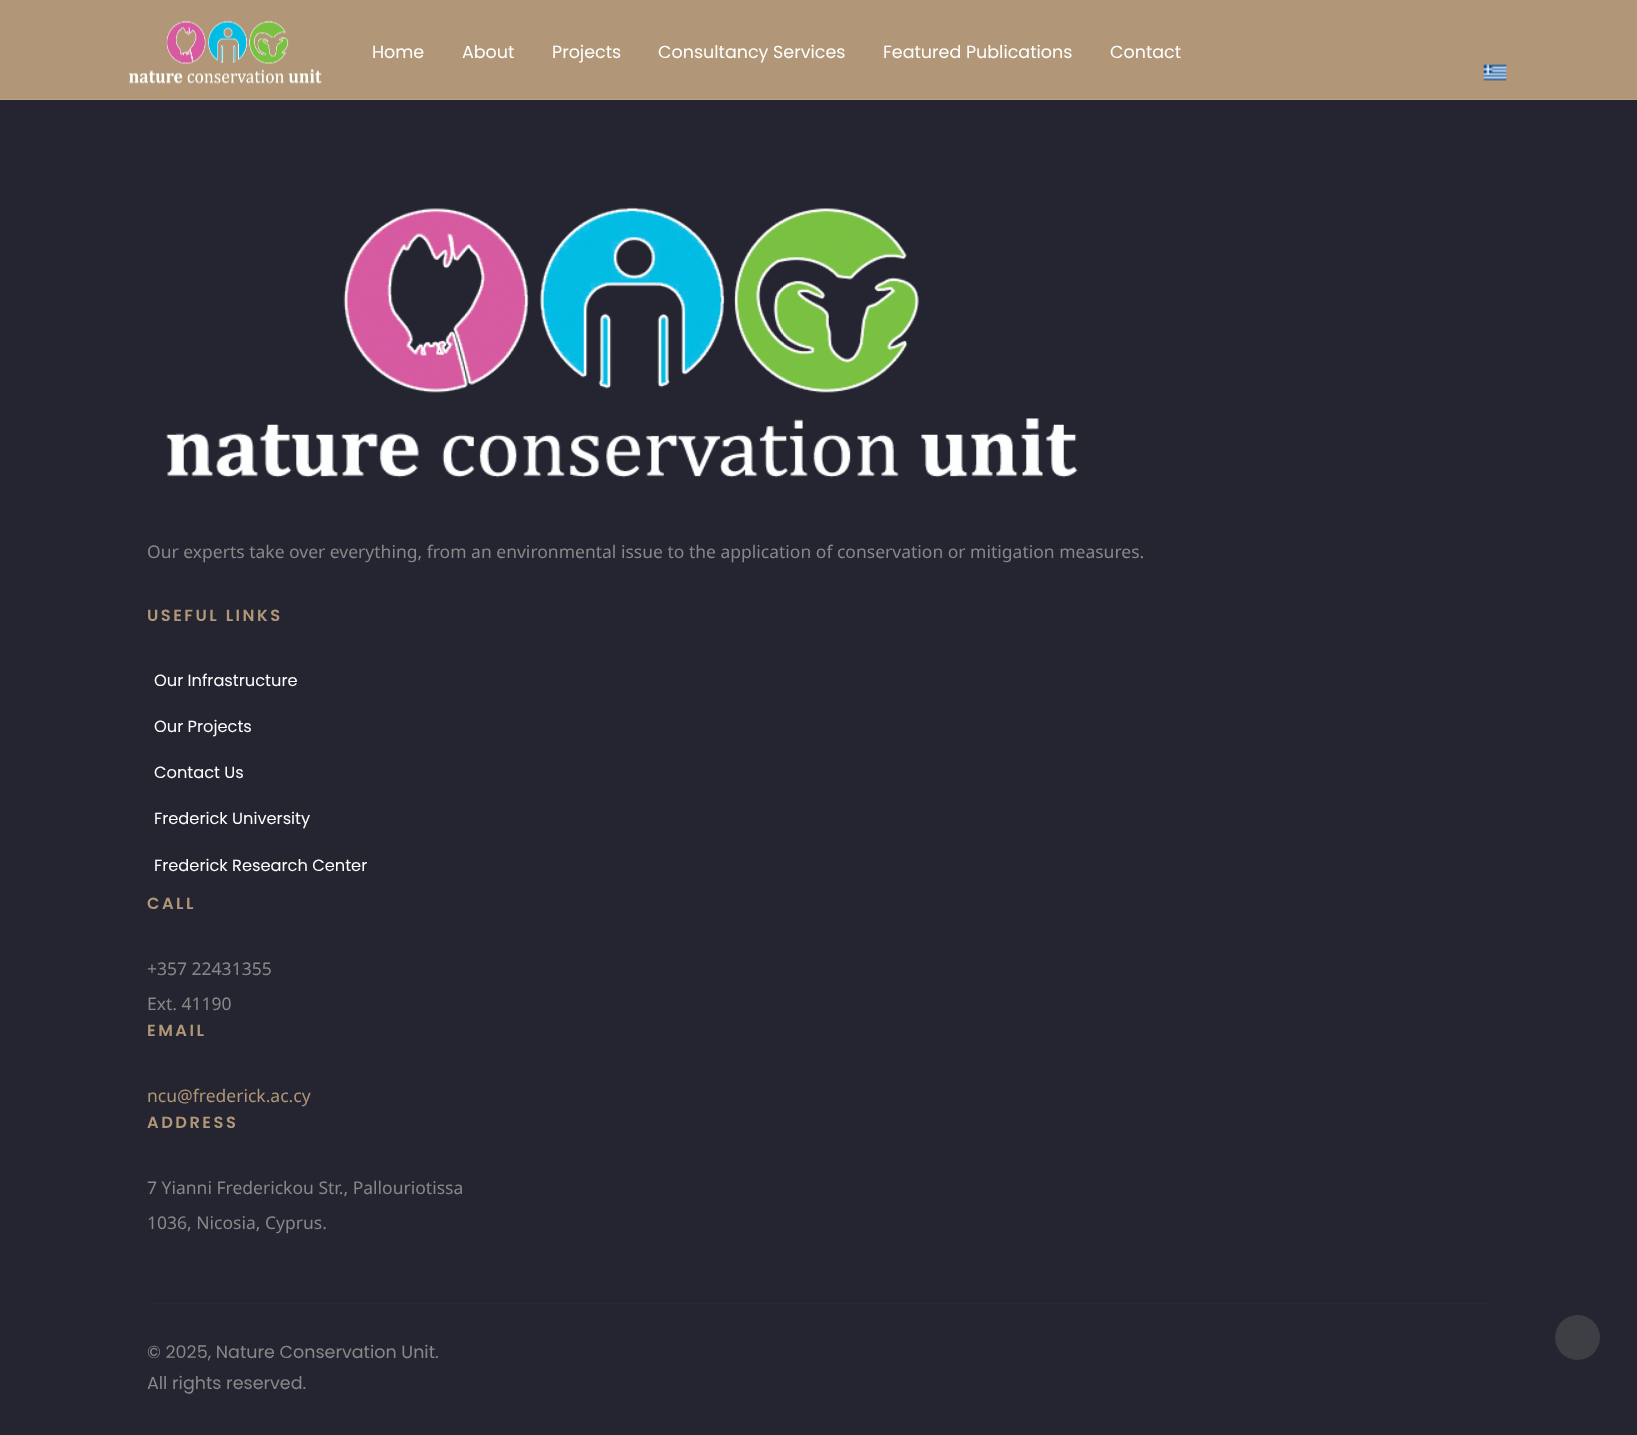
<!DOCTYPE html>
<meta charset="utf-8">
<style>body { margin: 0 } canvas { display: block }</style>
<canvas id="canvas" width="1637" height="1435"></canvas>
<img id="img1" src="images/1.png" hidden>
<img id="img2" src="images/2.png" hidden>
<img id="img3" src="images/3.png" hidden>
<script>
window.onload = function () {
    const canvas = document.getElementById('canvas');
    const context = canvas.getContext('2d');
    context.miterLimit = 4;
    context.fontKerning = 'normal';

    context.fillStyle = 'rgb(37, 37, 49)';
    context.fillRect(0, 0, 1637, 1435);
    context.fillStyle = 'rgb(177, 151, 119)';
    context.fillRect(0, 0, 1637, 99);
    context.fillStyle = 'rgb(185, 161, 133)';
    context.fillRect(0, 99, 1637, 1);
    context.drawImage(document.getElementById('img1'), 129, 20, 193, 64);
    context.drawImage(document.getElementById('img2'), 1483, 64, 24, 17);
    context.drawImage(document.getElementById('img3'), 166, 207, 912, 271);
    context.fillStyle = 'rgb(41, 41, 53)';
    context.fillRect(148, 1303, 1342, 1);
    context.fillStyle = 'rgb(62, 62, 69)';
    context.beginPath();
    context.arc(1577.5, 1337.5, 22.5, 0, 2 * Math.PI);
    context.fill();
    context.font = '17.5px Poppins';
    context.fillStyle = 'rgb(255, 255, 255)';
    context.fillText('Home', 372, 58);
    context.fillText('About', 462, 58);
    context.fillText('Projects', 552, 58);
    context.fillText('Consultancy Services', 658, 58);
    context.fillText('Featured Publications', 883, 58);
    context.fillText('Contact', 1110, 58);
    context.font = '17.5px Noto Sans';
    context.fillStyle = 'rgb(136, 136, 136)';
    context.fillText('Our experts take over everything, from an environmental issue to the application of conservation or mitigation measures.', 147, 558);
    context.letterSpacing = '2.5px';
    context.font = '600 16.25px Poppins';
    context.fillStyle = 'rgb(177, 151, 119)';
    context.fillText('USEFUL LINKS', 147, 621);
    context.letterSpacing = '0px';
    context.font = '16.25px Poppins';
    context.fillStyle = 'rgb(255, 255, 255)';
    context.fillText('Our Infrastructure', 154, 686);
    context.fillText('Our Projects', 154, 732);
    context.fillText('Contact Us', 154, 778);
    context.fillText('Frederick University', 154, 824);
    context.fillText('Frederick Research Center', 154, 871);
    context.letterSpacing = '2.5px';
    context.font = '600 16.25px Poppins';
    context.fillStyle = 'rgb(177, 151, 119)';
    context.fillText('CALL', 147, 909);
    context.letterSpacing = '0px';
    context.font = '17.5px Noto Sans';
    context.fillStyle = 'rgb(136, 136, 136)';
    context.fillText('+357 22431355', 147, 975);
    context.fillText('Ext. 41190', 147, 1010);
    context.letterSpacing = '2.5px';
    context.font = '600 16.25px Poppins';
    context.fillStyle = 'rgb(177, 151, 119)';
    context.fillText('EMAIL', 147, 1036);
    context.letterSpacing = '0px';
    context.font = '17.5px Noto Sans';
    context.fillText('ncu@frederick.ac.cy', 147, 1102);
    context.letterSpacing = '2.5px';
    context.font = '600 16.25px Poppins';
    context.fillText('ADDRESS', 147, 1128);
    context.letterSpacing = '0px';
    context.font = '17.5px Noto Sans';
    context.fillStyle = 'rgb(136, 136, 136)';
    context.fillText('7 Yianni Frederickou Str., Pallouriotissa', 147, 1194);
    context.fillText('1036, Nicosia, Cyprus.', 147, 1229);
    context.font = '17.5px Poppins';
    context.fillText('© 2025, Nature Conservation Unit.', 147, 1358);
    context.fillText('All rights reserved.', 147, 1389);
};
</script>
